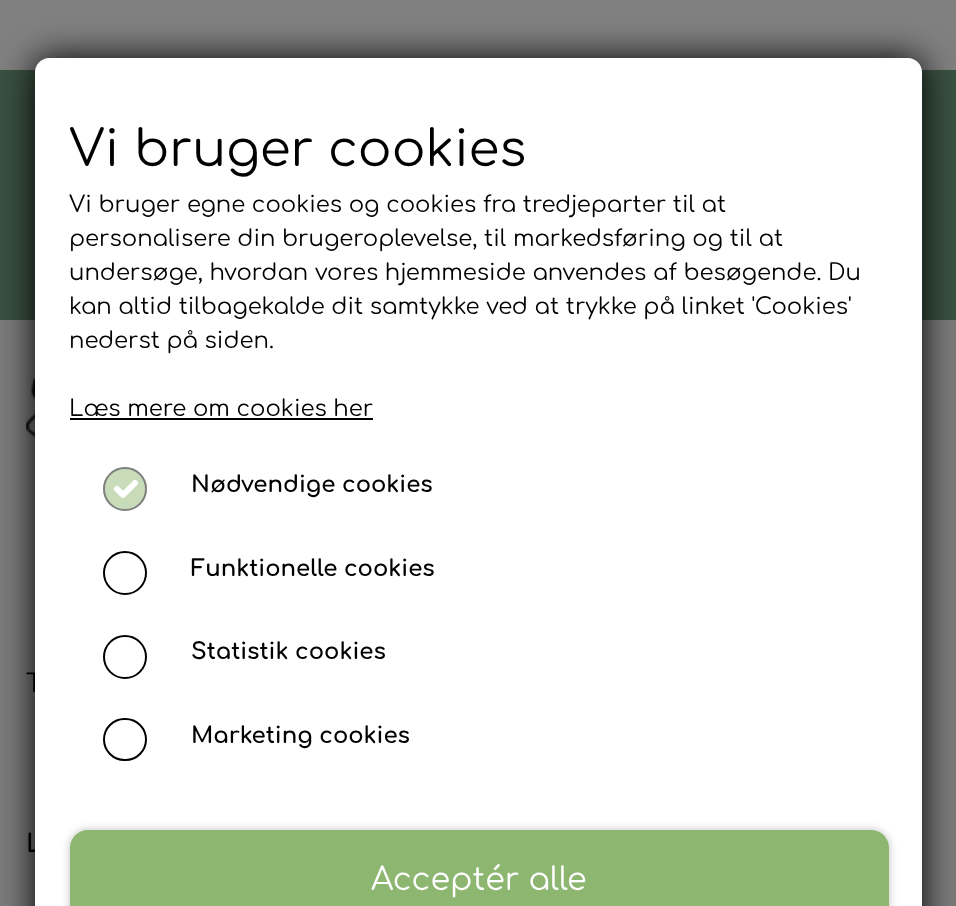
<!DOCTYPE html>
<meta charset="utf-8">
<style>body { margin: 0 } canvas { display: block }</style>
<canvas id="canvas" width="956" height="906"></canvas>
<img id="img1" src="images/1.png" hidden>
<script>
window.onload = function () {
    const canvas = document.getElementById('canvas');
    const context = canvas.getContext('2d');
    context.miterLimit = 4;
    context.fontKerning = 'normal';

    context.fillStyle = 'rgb(124, 124, 124)';
    context.fillRect(0, 0, 956, 906);
    context.fillStyle = 'rgb(128, 128, 128)';
    context.fillRect(0, 0, 956, 70);
    context.fillStyle = 'rgb(58, 81, 65)';
    context.fillRect(0, 70, 956, 250);
    context.drawImage(document.getElementById('img1'), 26, 378, 9, 60);
    context.fillStyle = 'rgb(0, 0, 0)';
    context.filter = 'blur(17.5px)';
    context.beginPath();
    context.roundRect(35, 58, 887, 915, 14);
    context.fill();
    context.filter = 'none';
    context.font = '25px Comfortaa';
    context.fillText('T', 26, 692);
    context.font = 'bold 25px Comfortaa';
    context.fillText('L', 26, 852);
    context.fillStyle = 'rgb(255, 255, 255)';
    context.beginPath();
    context.moveTo(49, 58);
    context.lineTo(908, 58);
    context.bezierCurveTo(915.5, 58, 922, 64.5, 922, 72);
    context.lineTo(922, 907);
    context.lineTo(35, 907);
    context.lineTo(35, 72);
    context.bezierCurveTo(35, 64.5, 41.5, 58, 49, 58);
    context.closePath();
    context.fill();
    context.font = '50px Comfortaa';
    context.fillStyle = 'rgb(0, 0, 0)';
    context.fillText('Vi bruger cookies', 69, 166);
    context.font = '22.75px Comfortaa';
    context.fillText('Vi bruger egne cookies og cookies fra tredjeparter til at', 69, 212);
    context.fillText('personalisere din brugeroplevelse, til markedsføring og til at', 69, 246);
    context.fillText('undersøge, hvordan vores hjemmeside anvendes af besøgende. Du', 69, 280);
    context.fillText('kan altid tilbagekalde dit samtykke ved at trykke på linket \'Cookies\'', 69, 314);
    context.fillText('nederst på siden.', 69, 348);
    context.fillText('Læs mere om cookies her', 69, 416);
    context.fillRect(70, 418, 303, 2);
    context.fillStyle = 'rgb(200, 220, 186)';
    context.beginPath();
    context.arc(125, 489, 22, 0, 2 * Math.PI);
    context.fill();
    context.beginPath();
    context.moveTo(117, 489);
    context.lineTo(123, 495);
    context.lineTo(135, 483);
    context.strokeStyle = 'rgb(255, 255, 255)';
    context.lineWidth = 6;
    context.lineCap = 'round';
    context.lineJoin = 'round';
    context.stroke();
    context.beginPath();
    context.arc(125, 489, 21, 0, 2 * Math.PI);
    context.strokeStyle = 'rgb(128, 128, 128)';
    context.lineWidth = 2;
    context.stroke();
    context.font = 'bold 22.75px Comfortaa';
    context.fillStyle = 'rgb(0, 0, 0)';
    context.fillText('Nødvendige cookies', 191, 492);
    context.beginPath();
    context.arc(125, 573, 21, 0, 2 * Math.PI);
    context.strokeStyle = 'rgb(0, 0, 0)';
    context.stroke();
    context.fillText('Funktionelle cookies', 191, 576);
    context.beginPath();
    context.arc(125, 657, 21, 0, 2 * Math.PI);
    context.stroke();
    context.fillText('Statistik cookies', 191, 659);
    context.beginPath();
    context.roundRect(104, 719, 42, 41, 20.5);
    context.lineJoin = 'miter';
    context.stroke();
    context.fillText('Marketing cookies', 191, 743);
    context.fillStyle = 'rgba(0, 0, 0, 0.25)';
    context.filter = 'blur(4.5px)';
    context.beginPath();
    context.roundRect(70, 830, 819, 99, 18);
    context.fill();
    context.filter = 'none';
    context.fillStyle = 'rgb(141, 182, 113)';
    context.beginPath();
    context.moveTo(88, 830);
    context.lineTo(871, 830);
    context.bezierCurveTo(881, 830, 889, 838, 889, 848);
    context.lineTo(889, 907);
    context.lineTo(70, 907);
    context.lineTo(70, 848);
    context.bezierCurveTo(70, 838, 78, 830, 88, 830);
    context.closePath();
    context.fill();
    context.font = '31.75px Comfortaa';
    context.fillStyle = 'rgb(255, 255, 255)';
    context.fillText('Acceptér alle', 371, 890);
};
</script>
